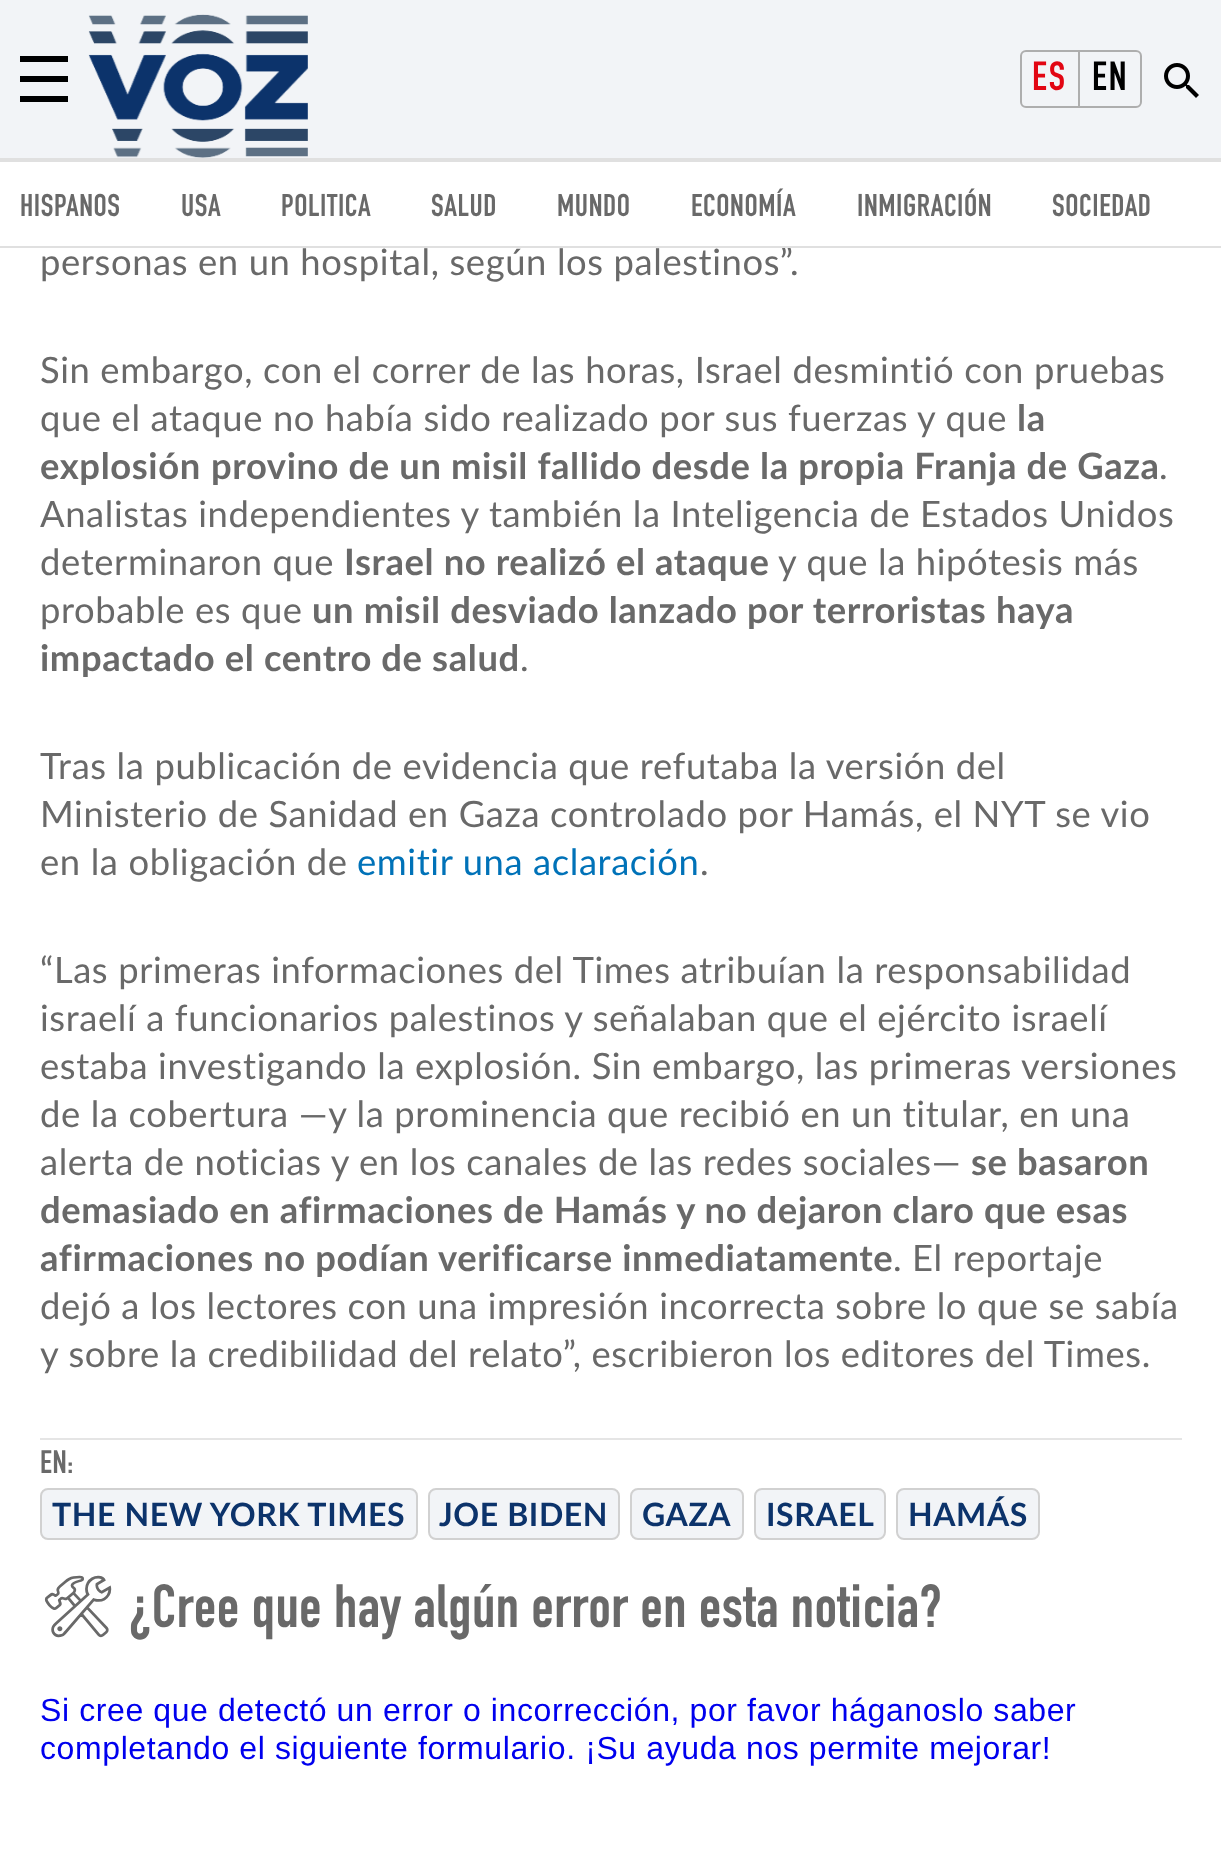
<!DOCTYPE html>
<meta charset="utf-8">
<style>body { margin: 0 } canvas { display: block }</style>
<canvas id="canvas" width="1221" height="1856"></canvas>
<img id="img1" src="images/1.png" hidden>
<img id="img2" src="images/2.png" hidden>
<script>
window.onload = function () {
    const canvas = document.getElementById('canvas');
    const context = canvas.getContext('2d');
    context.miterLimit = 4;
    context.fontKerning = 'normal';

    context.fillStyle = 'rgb(255, 255, 255)';
    context.fillRect(0, 0, 1221, 1856);
    context.fillStyle = 'rgb(242, 244, 247)';
    context.fillRect(0, 0, 1221, 158);
    context.fillStyle = 'rgb(0, 0, 0)';
    context.fillRect(20, 76, 48, 6);
    context.fillRect(20, 56, 48, 6);
    context.fillRect(20, 96, 48, 6);
    context.drawImage(document.getElementById('img1'), 88, 14, 220, 144);
    context.fillStyle = 'rgb(224, 224, 224)';
    context.fillRect(0, 158, 1221, 4);
    context.beginPath();
    context.roundRect(1021, 51, 120, 56, 5);
    context.strokeStyle = 'rgb(174, 174, 174)';
    context.lineWidth = 2;
    context.stroke();
    context.fillStyle = 'rgb(174, 174, 174)';
    context.fillRect(1078, 52, 2, 54);
    context.drawImage(document.getElementById('img2'), 1164, 63, 35, 35);
    context.fillStyle = 'rgb(229, 229, 229)';
    context.fillRect(40, 1438, 1142, 2);
    context.fillStyle = 'rgb(242, 244, 247)';
    context.beginPath();
    context.roundRect(41, 1489, 376, 50, 7);
    context.fill();
    context.strokeStyle = 'rgb(209, 209, 209)';
    context.stroke();
    context.beginPath();
    context.roundRect(429, 1489, 190, 50, 7);
    context.fill();
    context.stroke();
    context.beginPath();
    context.roundRect(631, 1489, 112, 50, 7);
    context.fill();
    context.stroke();
    context.beginPath();
    context.roundRect(755, 1489, 130, 50, 7);
    context.fill();
    context.stroke();
    context.beginPath();
    context.roundRect(897, 1489, 142, 50, 7);
    context.fill();
    context.stroke();
    context.letterSpacing = '2px';
    context.font = 'bold 40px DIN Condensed';
    context.fillStyle = 'rgb(226, 6, 19)';
    context.fillText('ES', 1032, 90);
    context.fillStyle = 'rgb(0, 0, 0)';
    context.fillText('EN', 1092, 90);
    context.letterSpacing = '0.6px';
    context.font = 'bold 31px DIN Condensed';
    context.fillStyle = 'rgb(105, 105, 105)';
    context.fillText('HISPANOS', 20, 216);
    context.fillText('USA', 181, 216);
    context.fillText('POLITICA', 281, 216);
    context.fillText('SALUD', 431, 216);
    context.fillText('MUNDO', 557, 216);
    context.fillText('ECONOMÍA', 691, 216);
    context.fillText('INMIGRACIÓN', 857, 216);
    context.fillText('SOCIEDAD', 1052, 216);
    context.font = '36.4px Lato';
    context.fillText('personas en un hospital, según los palestinos”.', 40, 275);
    context.fillStyle = 'rgb(224, 224, 224)';
    context.fillRect(0, 246, 1221, 2);
    context.fillStyle = 'rgb(105, 105, 105)';
    context.fillText('Sin embargo, con el correr de las horas, Israel desmintió con pruebas', 40, 383);
    context.fillText('que el ataque no había sido realizado por sus fuerzas y que', 40, 431);
    context.font = 'bold 36.4px Lato';
    context.fillText('la', 1017, 431);
    context.fillText('explosión', 40, 479);
    context.fillText('provino de un misil fallido desde la propia Franja de Gaza', 211, 479);
    context.font = '36.4px Lato';
    context.fillText('.', 1159, 479);
    context.fillText('Analistas independientes y también la Inteligencia de Estados Unidos', 40, 527);
    context.fillText('determinaron que', 40, 575);
    context.font = 'bold 36.4px Lato';
    context.fillText('Israel no realizó el ataque', 344, 575);
    context.font = '36.4px Lato';
    context.fillText('y que la hipótesis más', 778, 575);
    context.fillText('probable es que', 40, 623);
    context.font = 'bold 36.4px Lato';
    context.fillText('un misil desviado lanzado por terroristas haya', 312, 623);
    context.fillText('impactado el centro de salud', 40, 671);
    context.font = '36.4px Lato';
    context.fillText('.', 520, 671);
    context.fillText('Tras la publicación de evidencia que refutaba la versión del', 40, 779);
    context.fillText('Ministerio de Sanidad en Gaza controlado por Hamás, el NYT se vio', 40, 827);
    context.fillText('en la obligación de', 40, 875);
    context.fillStyle = 'rgb(0, 114, 184)';
    context.fillText('emitir una aclaración', 357, 875);
    context.fillStyle = 'rgb(105, 105, 105)';
    context.fillText('.', 700, 875);
    context.fillText('“Las primeras informaciones del Times atribuían la responsabilidad', 40, 983);
    context.fillText('israelí a funcionarios palestinos y señalaban que el ejército israelí', 40, 1031);
    context.fillText('estaba investigando la explosión. Sin embargo, las primeras versiones', 40, 1079);
    context.fillText('de la cobertura —y la prominencia que recibió en un titular, en una', 40, 1127);
    context.fillText('alerta de noticias y en los canales de las redes sociales—', 40, 1175);
    context.font = 'bold 36.4px Lato';
    context.fillText('se basaron', 971, 1175);
    context.fillText('demasiado en afirmaciones de Hamás y no dejaron claro que esas', 40, 1223);
    context.fillText('afirmaciones no podían verificarse inmediatamente', 40, 1271);
    context.font = '36.4px Lato';
    context.fillText('. El reportaje', 893, 1271);
    context.fillText('dejó a los lectores con una impresión incorrecta sobre lo que se sabía', 40, 1319);
    context.fillText('y sobre la credibilidad del relato”, escribieron los editores del Times.', 40, 1367);
    context.font = 'bold 32px DIN Condensed';
    context.fillText('EN:', 40, 1473);
    context.font = 'bold 32px Lato';
    context.fillStyle = 'rgb(12, 51, 107)';
    context.fillText('THE NEW YORK TIMES', 52, 1526);
    context.fillText('JOE BIDEN', 439, 1526);
    context.fillText('GAZA', 642, 1526);
    context.fillText('ISRAEL', 766, 1526);
    context.fillText('HAMÁS', 908, 1526);
    context.font = '600 60px Noto Emoji';
    context.fillStyle = 'rgb(105, 105, 105)';
    context.fillText('🛠', 40, 1627);
    context.font = 'bold 60px DIN Condensed';
    context.fillText('¿Cree que hay algún error en esta noticia?', 129, 1627);
    context.font = '32px Liberation Sans';
    context.fillStyle = 'rgb(0, 0, 238)';
    context.fillText('Si cree que detectó un error o incorrección, por favor háganoslo saber', 40, 1721);
    context.fillText('completando el siguiente formulario. ¡Su ayuda nos permite mejorar!', 40, 1759);
};
</script>
